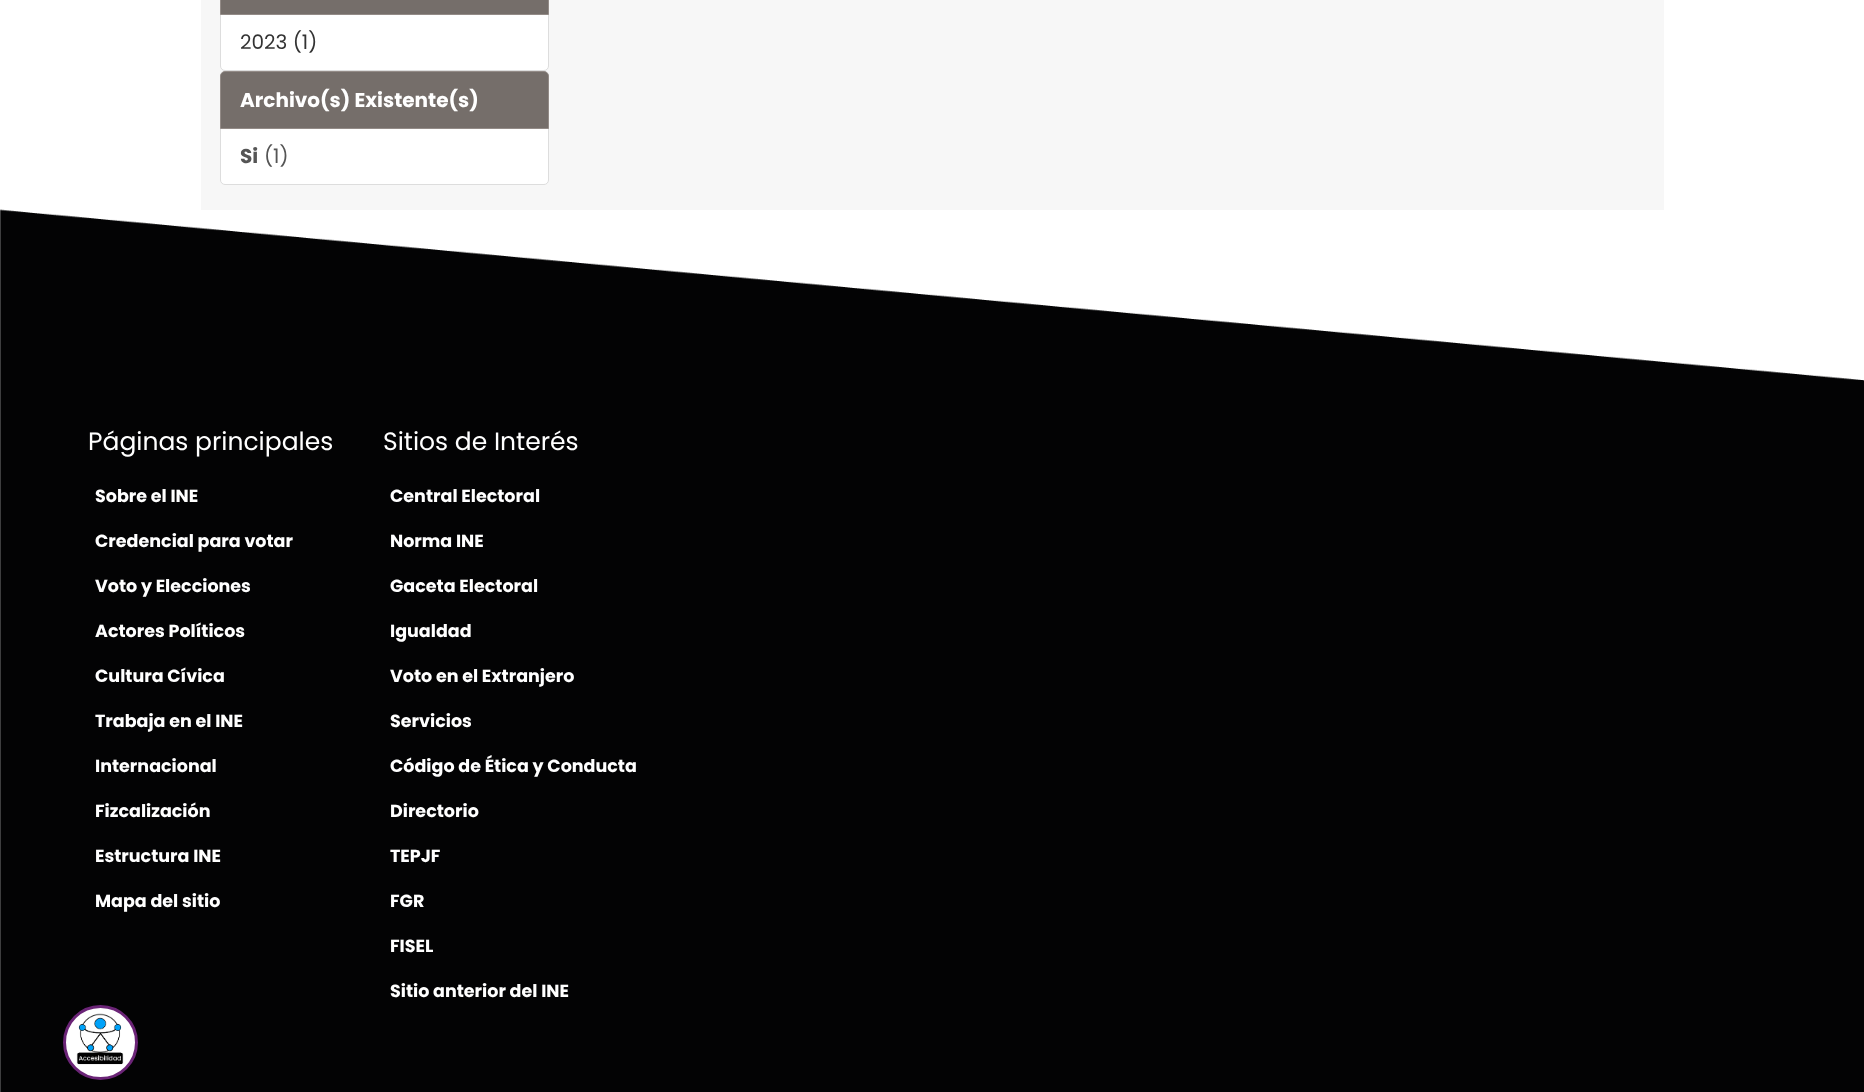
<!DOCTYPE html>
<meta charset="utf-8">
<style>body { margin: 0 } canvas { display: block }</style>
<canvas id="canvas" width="1864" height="1092"></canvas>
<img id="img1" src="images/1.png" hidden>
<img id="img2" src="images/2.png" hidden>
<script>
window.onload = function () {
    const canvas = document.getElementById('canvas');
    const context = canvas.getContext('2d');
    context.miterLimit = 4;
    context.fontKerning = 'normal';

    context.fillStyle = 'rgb(255, 255, 255)';
    context.fillRect(0, 0, 1864, 1092);
    context.drawImage(document.getElementById('img1'), 0, 209, 1864, 883);
    context.fillStyle = 'rgb(247, 247, 247)';
    context.fillRect(201, 0, 1463, 210);
    context.fillStyle = 'rgb(255, 255, 255)';
    context.beginPath();
    context.roundRect(220.5, 14.5, 328, 56, [0, 0, 4.5, 4.5]);
    context.fill();
    context.strokeStyle = 'rgb(221, 221, 221)';
    context.stroke();
    context.fillStyle = 'rgb(117, 110, 106)';
    context.beginPath();
    context.rect(220.5, -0.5, 328, 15);
    context.fill();
    context.strokeStyle = 'rgb(147, 139, 135)';
    context.stroke();
    context.fillStyle = 'rgb(255, 255, 255)';
    context.beginPath();
    context.roundRect(220.5, 128.5, 328, 56, [0, 0, 4.5, 4.5]);
    context.fill();
    context.strokeStyle = 'rgb(221, 221, 221)';
    context.stroke();
    context.fillStyle = 'rgb(117, 110, 106)';
    context.beginPath();
    context.roundRect(220.5, 71.5, 328, 57, [4.5, 4.5, 0, 0]);
    context.fill();
    context.strokeStyle = 'rgb(147, 139, 135)';
    context.stroke();
    context.fillStyle = 'rgb(255, 255, 255)';
    context.beginPath();
    context.arc(100.5, 1042.5, 36, 0, 2 * Math.PI);
    context.fill();
    context.strokeStyle = 'rgb(107, 36, 119)';
    context.lineWidth = 3;
    context.stroke();
    context.drawImage(document.getElementById('img2'), 76, 1013, 48, 52);
    context.font = '20px Poppins';
    context.fillStyle = 'rgb(51, 51, 51)';
    context.fillText('2023 (1)', 240, 49);
    context.font = 'bold 20px Poppins';
    context.fillStyle = 'rgb(255, 255, 255)';
    context.fillText('Archivo(s) Existente(s)', 240, 107);
    context.fillStyle = 'rgb(85, 85, 85)';
    context.fillText('Si', 240, 163);
    context.font = '20px Poppins';
    context.fillText('(1)', 264, 163);
    context.font = '25px Poppins';
    context.fillStyle = 'rgb(255, 255, 255)';
    context.fillText('Páginas principales', 88, 450);
    context.font = 'bold 17.5px Poppins';
    context.fillText('Sobre el INE', 95, 502);
    context.fillText('Credencial para votar', 95, 547);
    context.fillText('Voto y Elecciones', 95, 592);
    context.fillText('Actores Políticos', 95, 637);
    context.fillText('Cultura Cívica', 95, 682);
    context.fillText('Trabaja en el INE', 95, 727);
    context.fillText('Internacional', 95, 772);
    context.fillText('Fizcalización', 95, 817);
    context.fillText('Estructura INE', 95, 862);
    context.fillText('Mapa del sitio', 95, 907);
    context.font = '25px Poppins';
    context.fillText('Sitios de Interés', 383, 450);
    context.font = 'bold 17.5px Poppins';
    context.fillText('Central Electoral', 390, 502);
    context.fillText('Norma INE', 390, 547);
    context.fillText('Gaceta Electoral', 390, 592);
    context.fillText('Igualdad', 390, 637);
    context.fillText('Voto en el Extranjero', 390, 682);
    context.fillText('Servicios', 390, 727);
    context.fillText('Código de Ética y Conducta', 390, 772);
    context.fillText('Directorio', 390, 817);
    context.fillText('TEPJF', 390, 862);
    context.fillText('FGR', 390, 907);
    context.fillText('FISEL', 390, 952);
    context.fillText('Sitio anterior del INE', 390, 997);
};
</script>
